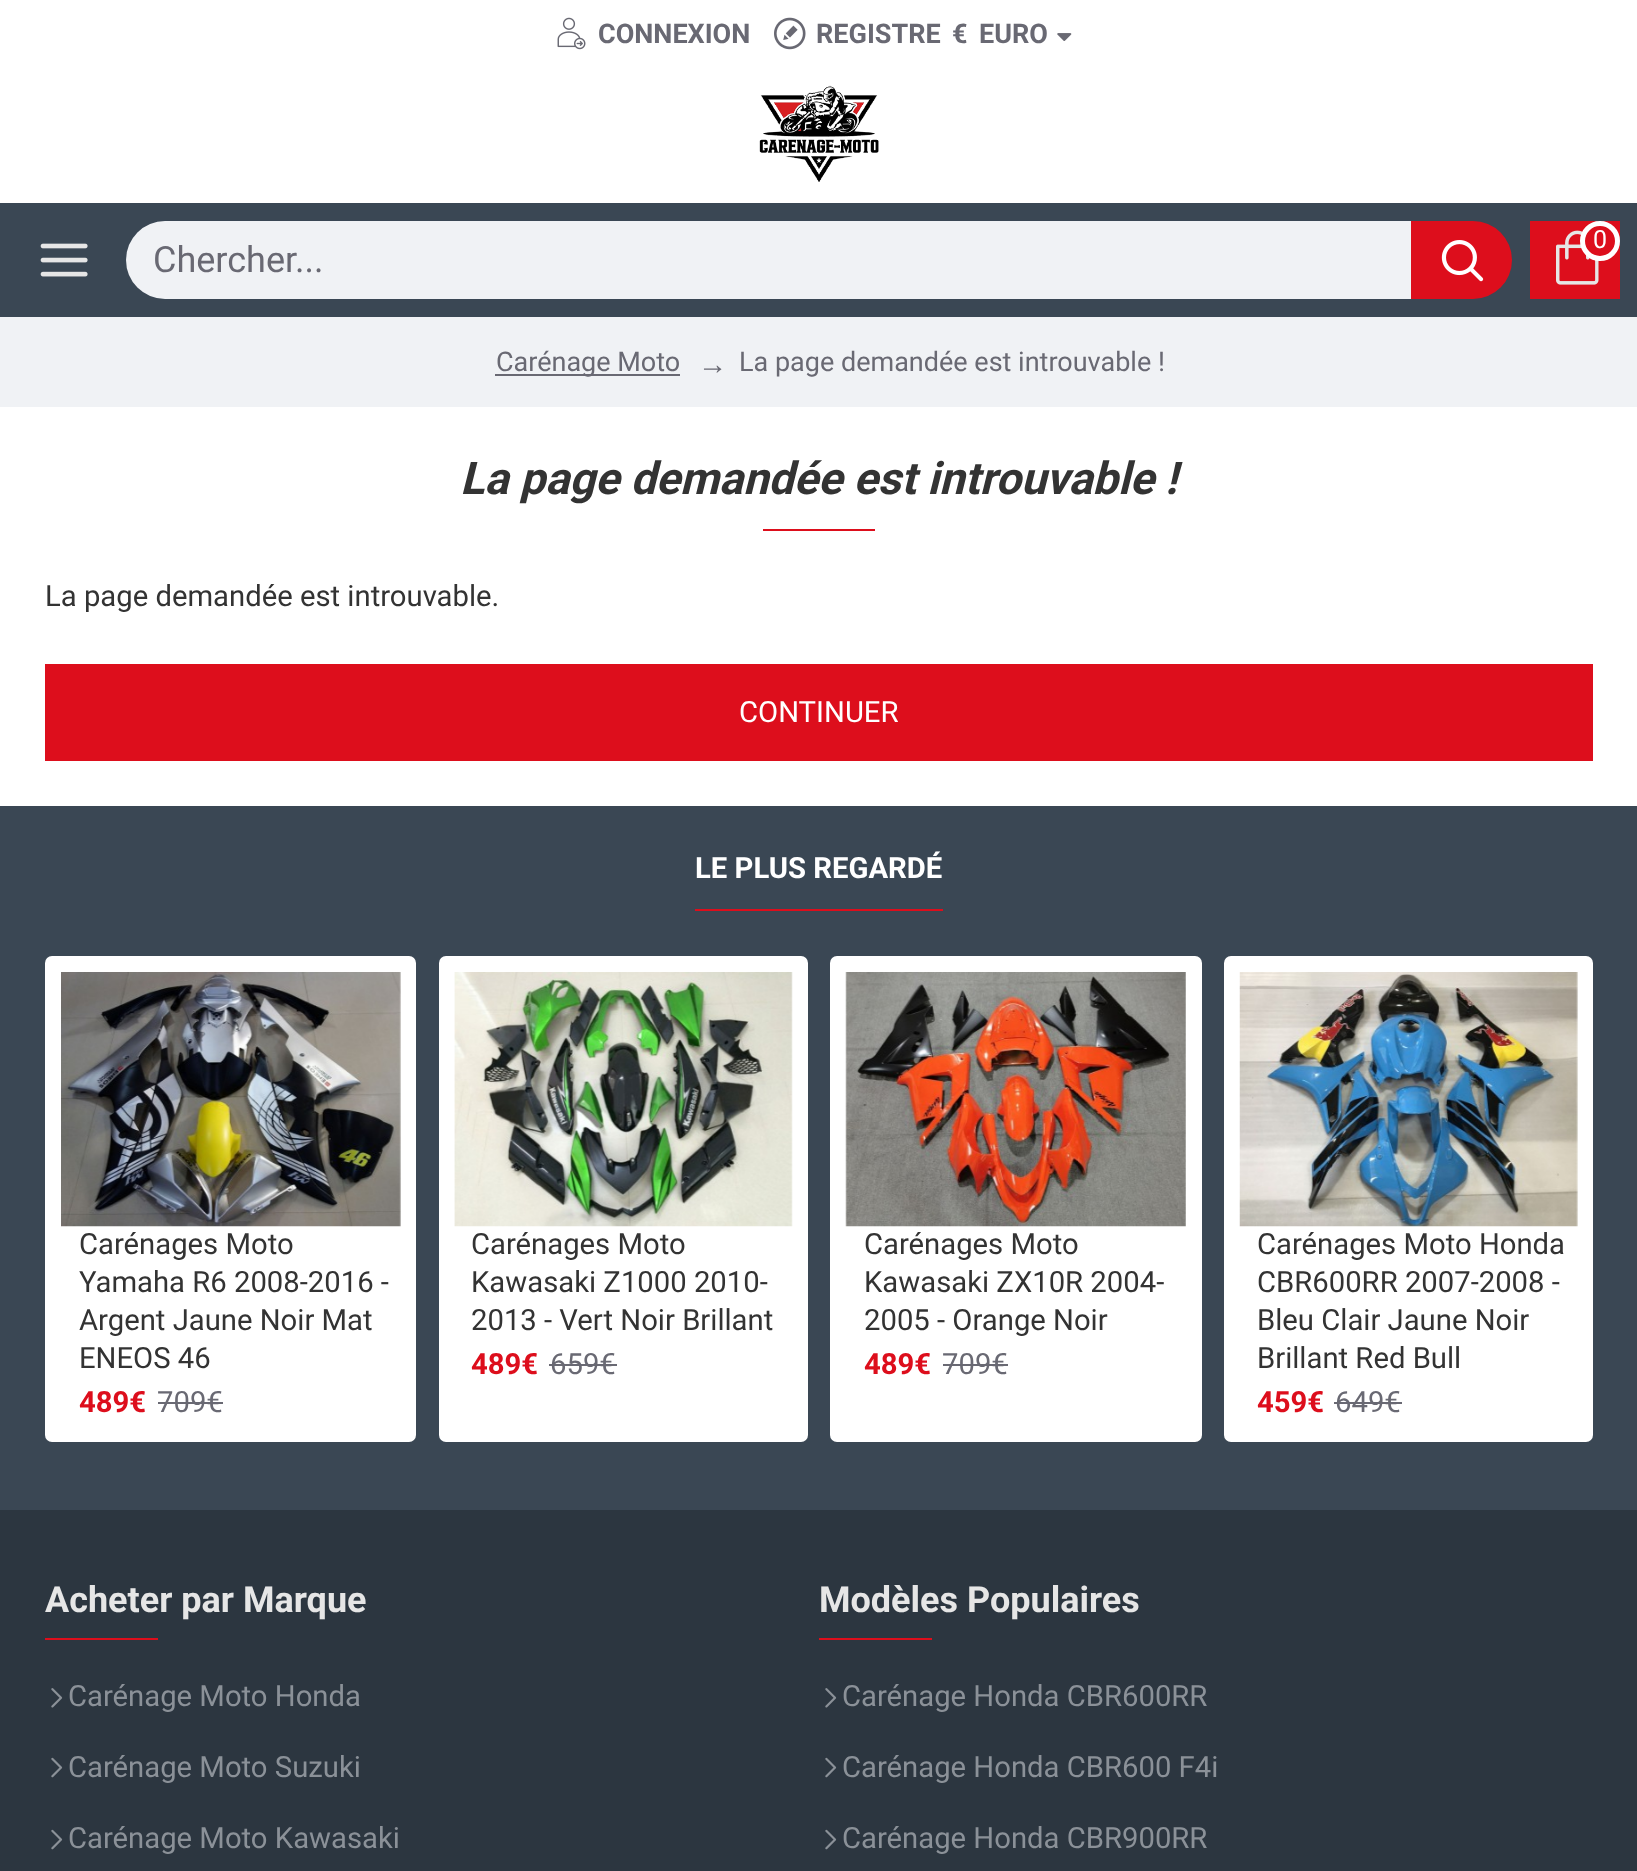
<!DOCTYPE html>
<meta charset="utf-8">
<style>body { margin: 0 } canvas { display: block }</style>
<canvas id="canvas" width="1637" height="1871"></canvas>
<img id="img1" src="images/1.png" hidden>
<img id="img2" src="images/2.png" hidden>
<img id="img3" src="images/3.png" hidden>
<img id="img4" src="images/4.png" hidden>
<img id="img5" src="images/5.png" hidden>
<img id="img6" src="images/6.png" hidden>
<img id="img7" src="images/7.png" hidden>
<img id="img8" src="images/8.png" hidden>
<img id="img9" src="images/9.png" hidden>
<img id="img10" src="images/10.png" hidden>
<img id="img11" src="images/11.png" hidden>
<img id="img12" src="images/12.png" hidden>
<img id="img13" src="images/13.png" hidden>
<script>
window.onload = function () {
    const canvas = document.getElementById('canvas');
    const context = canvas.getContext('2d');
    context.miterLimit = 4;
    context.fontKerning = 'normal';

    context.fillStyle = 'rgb(255, 255, 255)';
    context.fillRect(0, 0, 1637, 1871);
    context.drawImage(document.getElementById('img1'), 557, 17, 29, 33);
    context.drawImage(document.getElementById('img2'), 774, 17, 32, 33);
    context.drawImage(document.getElementById('img3'), 1057, 33, 15, 8);
    context.drawImage(document.getElementById('img4'), 759, 85, 120, 97);
    context.fillStyle = 'rgb(58, 71, 84)';
    context.fillRect(0, 203, 1637, 114);
    context.fillStyle = 'rgb(221, 14, 28)';
    context.fillRect(1530, 221, 90, 78);
    context.drawImage(document.getElementById('img5'), 1556, 230, 43, 55);
    context.beginPath();
    context.arc(1600, 241, 17.5, 0, 2 * Math.PI);
    context.fill();
    context.strokeStyle = 'rgb(255, 255, 255)';
    context.lineWidth = 5;
    context.stroke();
    context.drawImage(document.getElementById('img6'), 40, 243, 48, 34);
    context.fillStyle = 'rgb(240, 242, 245)';
    context.beginPath();
    context.roundRect(126, 221, 1285, 78, [39, 0, 0, 39]);
    context.fill();
    context.fillStyle = 'rgb(221, 14, 28)';
    context.beginPath();
    context.roundRect(1411, 221, 101, 78, [0, 39, 39, 0]);
    context.fill();
    context.drawImage(document.getElementById('img7'), 1441, 240, 43, 42);
    context.fillStyle = 'rgb(240, 242, 245)';
    context.fillRect(0, 317, 1637, 90);
    context.fillStyle = 'rgb(105, 105, 115)';
    context.fillRect(495, 374, 185, 2);
    context.fillStyle = 'rgb(221, 14, 28)';
    context.fillRect(763, 529, 112, 2);
    context.fillRect(45, 664, 1548, 97);
    context.fillStyle = 'rgb(44, 54, 64)';
    context.fillRect(0, 1510, 1637, 361);
    context.fillStyle = 'rgb(58, 71, 84)';
    context.fillRect(0, 806, 1637, 704);
    context.fillStyle = 'rgb(221, 14, 28)';
    context.fillRect(695, 909, 248, 2);
    context.fillStyle = 'rgb(255, 255, 255)';
    context.beginPath();
    context.roundRect(45, 956, 371, 486, 7);
    context.fill();
    context.drawImage(document.getElementById('img8'), 61, 972, 340, 255);
    context.fillStyle = 'rgb(105, 105, 115)';
    context.fillRect(158, 1402, 65, 2);
    context.fillStyle = 'rgb(255, 255, 255)';
    context.beginPath();
    context.roundRect(439, 956, 369, 486, 7);
    context.fill();
    context.drawImage(document.getElementById('img9'), 454, 972, 339, 255);
    context.fillStyle = 'rgb(105, 105, 115)';
    context.fillRect(549, 1364, 68, 2);
    context.fillStyle = 'rgb(255, 255, 255)';
    context.beginPath();
    context.roundRect(830, 956, 372, 486, 7);
    context.fill();
    context.drawImage(document.getElementById('img10'), 845, 972, 341, 255);
    context.fillStyle = 'rgb(105, 105, 115)';
    context.fillRect(943, 1364, 65, 2);
    context.fillStyle = 'rgb(255, 255, 255)';
    context.beginPath();
    context.roundRect(1224, 956, 369, 486, 7);
    context.fill();
    context.drawImage(document.getElementById('img11'), 1239, 972, 339, 255);
    context.fillStyle = 'rgb(105, 105, 115)';
    context.fillRect(1334, 1402, 68, 2);
    context.fillStyle = 'rgb(221, 14, 28)';
    context.fillRect(45, 1638, 113, 2);
    context.drawImage(document.getElementById('img12'), 51, 1688, 12, 20);
    context.drawImage(document.getElementById('img13'), 51, 1757, 12, 21);
    context.drawImage(document.getElementById('img13'), 51, 1829, 12, 21);
    context.fillRect(819, 1638, 113, 2);
    context.drawImage(document.getElementById('img12'), 825, 1688, 12, 20);
    context.drawImage(document.getElementById('img13'), 825, 1757, 12, 21);
    context.drawImage(document.getElementById('img13'), 825, 1829, 12, 21);
    context.font = 'bold 27px Roboto';
    context.fillStyle = 'rgb(105, 105, 115)';
    context.fillText('CONNEXION', 598, 43);
    context.fillText('REGISTRE', 816, 43);
    context.fillText('€', 952, 43);
    context.fillText('EURO', 979, 43);
    context.font = '25px Roboto';
    context.fillStyle = 'rgb(255, 255, 255)';
    context.fillText('0', 1593, 248);
    context.font = '36px Roboto';
    context.fillStyle = 'rgb(105, 105, 115)';
    context.fillText('Chercher...', 153, 272);
    context.font = '27px Roboto';
    context.fillText('Carénage Moto', 496, 371);
    context.font = '29.25px Liberation Serif';
    context.fillText('→', 698, 374);
    context.font = '27px Roboto';
    context.fillText('La page demandée est introuvable !', 739, 371);
    context.font = 'italic bold 45px Roboto';
    context.fillStyle = 'rgb(51, 51, 51)';
    context.fillText('La page demandée est introuvable !', 460, 494);
    context.font = '29.25px Roboto';
    context.fillText('La page demandée est introuvable.', 45, 606);
    context.fillStyle = 'rgb(255, 255, 255)';
    context.fillText('CONTINUER', 739, 722);
    context.font = 'bold 29.25px Roboto';
    context.fillText('LE PLUS REGARDÉ', 695, 878);
    context.font = '29.25px Roboto';
    context.fillStyle = 'rgb(51, 51, 51)';
    context.fillText('Carénages Moto', 79, 1254);
    context.fillText('Yamaha R6 2008-2016 -', 79, 1292);
    context.fillText('Argent Jaune Noir Mat', 79, 1330);
    context.fillText('ENEOS 46', 79, 1368);
    context.font = 'bold 29.25px Roboto';
    context.fillStyle = 'rgb(221, 14, 28)';
    context.fillText('489€', 79, 1412);
    context.font = '29.25px Roboto';
    context.fillStyle = 'rgb(105, 105, 115)';
    context.fillText('709€', 157, 1412);
    context.fillStyle = 'rgb(51, 51, 51)';
    context.fillText('Carénages Moto', 471, 1254);
    context.fillText('Kawasaki Z1000 2010-', 471, 1292);
    context.fillText('2013 - Vert Noir Brillant', 471, 1330);
    context.font = 'bold 29.25px Roboto';
    context.fillStyle = 'rgb(221, 14, 28)';
    context.fillText('489€', 471, 1374);
    context.font = '29.25px Roboto';
    context.fillStyle = 'rgb(105, 105, 115)';
    context.fillText('659€', 550, 1374);
    context.fillStyle = 'rgb(51, 51, 51)';
    context.fillText('Carénages Moto', 864, 1254);
    context.fillText('Kawasaki ZX10R 2004-', 864, 1292);
    context.fillText('2005 - Orange Noir', 864, 1330);
    context.font = 'bold 29.25px Roboto';
    context.fillStyle = 'rgb(221, 14, 28)';
    context.fillText('489€', 864, 1374);
    context.font = '29.25px Roboto';
    context.fillStyle = 'rgb(105, 105, 115)';
    context.fillText('709€', 942, 1374);
    context.fillStyle = 'rgb(51, 51, 51)';
    context.fillText('Carénages Moto Honda', 1257, 1254);
    context.fillText('CBR600RR 2007-2008 -', 1257, 1292);
    context.fillText('Bleu Clair Jaune Noir', 1257, 1330);
    context.fillText('Brillant Red Bull', 1257, 1368);
    context.font = 'bold 29.25px Roboto';
    context.fillStyle = 'rgb(221, 14, 28)';
    context.fillText('459€', 1257, 1412);
    context.font = '29.25px Roboto';
    context.fillStyle = 'rgb(105, 105, 115)';
    context.fillText('649€', 1335, 1412);
    context.font = 'bold 36px Roboto';
    context.fillStyle = 'rgb(230, 230, 230)';
    context.fillText('Acheter par Marque', 45, 1612);
    context.font = '29.25px Roboto';
    context.fillStyle = 'rgb(139, 145, 152)';
    context.fillText('Carénage Moto Honda', 68, 1706);
    context.fillText('Carénage Moto Suzuki', 68, 1777);
    context.fillText('Carénage Moto Kawasaki', 68, 1848);
    context.font = 'bold 36px Roboto';
    context.fillStyle = 'rgb(230, 230, 230)';
    context.fillText('Modèles Populaires', 819, 1612);
    context.font = '29.25px Roboto';
    context.fillStyle = 'rgb(139, 145, 152)';
    context.fillText('Carénage Honda CBR600RR', 842, 1706);
    context.fillText('Carénage Honda CBR600 F4i', 842, 1777);
    context.fillText('Carénage Honda CBR900RR', 842, 1848);
};
</script>
